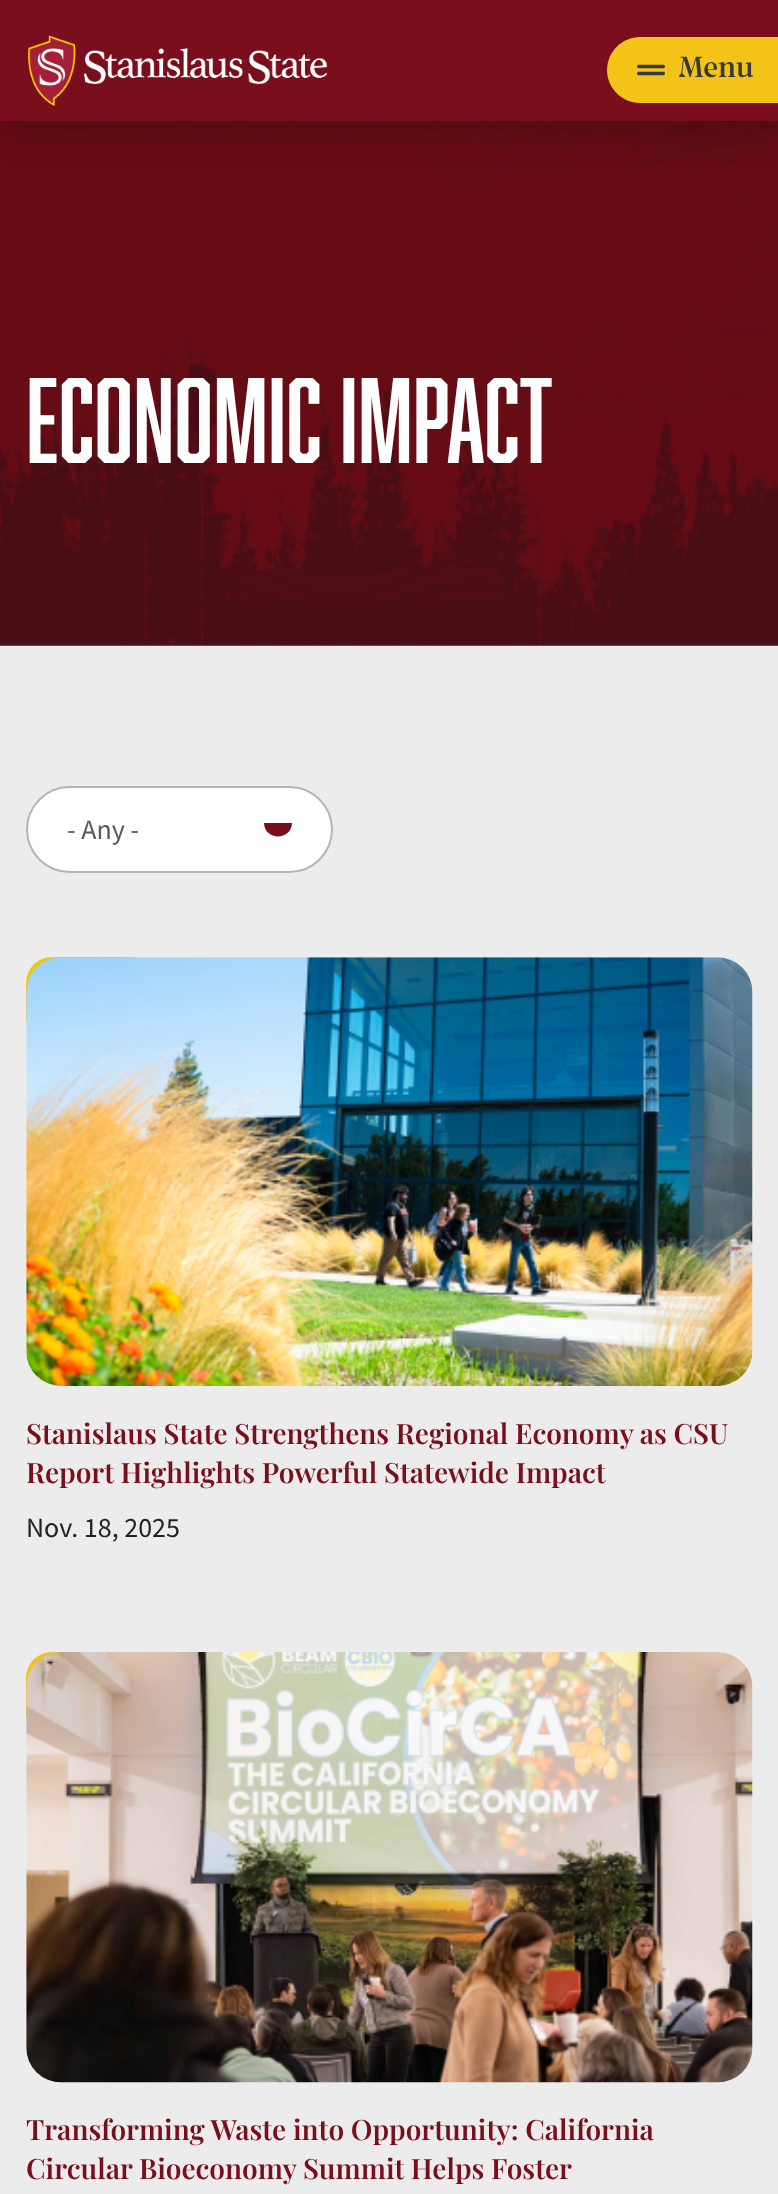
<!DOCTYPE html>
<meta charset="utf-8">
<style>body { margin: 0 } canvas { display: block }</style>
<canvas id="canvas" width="778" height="2194"></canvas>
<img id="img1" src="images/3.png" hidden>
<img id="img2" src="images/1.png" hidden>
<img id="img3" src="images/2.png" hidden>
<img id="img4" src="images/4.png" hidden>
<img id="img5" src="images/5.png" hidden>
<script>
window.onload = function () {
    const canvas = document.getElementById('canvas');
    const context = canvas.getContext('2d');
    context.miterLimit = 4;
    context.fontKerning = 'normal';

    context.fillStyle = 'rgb(236, 236, 236)';
    context.fillRect(0, 0, 778, 2194);
    context.drawImage(document.getElementById('img1'), 0, 121, 778, 525);
    context.fillStyle = 'rgba(0, 0, 0, 0.15)';
    context.filter = 'blur(14px)';
    context.beginPath();
    context.rect(0, 14, 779, 121);
    context.fill();
    context.filter = 'none';
    context.fillStyle = 'rgb(121, 14, 28)';
    context.fillRect(0, 0, 778, 121);
    context.drawImage(document.getElementById('img2'), 28, 35, 299, 72);
    context.fillStyle = 'rgb(243, 195, 23)';
    context.beginPath();
    context.moveTo(640, 37);
    context.lineTo(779, 37);
    context.lineTo(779, 103);
    context.lineTo(640, 103);
    context.bezierCurveTo(622, 103, 607, 88, 607, 70);
    context.bezierCurveTo(607, 52, 622, 37, 640, 37);
    context.closePath();
    context.fill();
    context.drawImage(document.getElementById('img3'), 637, 64, 28, 12);
    context.fillStyle = 'rgb(255, 255, 255)';
    context.beginPath();
    context.roundRect(26, 786, 307, 87, 43.5);
    context.fill();
    context.save();
    context.beginPath();
    context.rect(264, 823, 28, 14);
    context.clip();
    context.fillStyle = 'rgb(121, 14, 28)';
    context.beginPath();
    context.moveTo(292, 822.5);
    context.bezierCurveTo(292, 841, 264, 841, 264, 822.5);
    context.closePath();
    context.fill();
    context.restore();
    context.beginPath();
    context.roundRect(27, 787, 305, 85, 42.5);
    context.strokeStyle = 'rgb(173, 181, 189)';
    context.lineWidth = 2;
    context.stroke();
    context.fillStyle = 'rgb(243, 195, 23)';
    context.beginPath();
    context.roundRect(26, 957, 109, 65, [26, 0, 26, 0]);
    context.fill();
    context.drawImage(document.getElementById('img4'), 26, 957, 727, 429);
    context.beginPath();
    context.roundRect(26, 1652, 109, 65, [26, 0, 26, 0]);
    context.fill();
    context.drawImage(document.getElementById('img5'), 26, 1652, 727, 431);
    context.font = '600 31.5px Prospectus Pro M';
    context.fillStyle = 'rgb(52, 58, 64)';
    context.fillText('Menu', 679, 77);
    context.font = '112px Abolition';
    context.fillStyle = 'rgb(255, 255, 255)';
    context.fillText('Economic Impact', 26, 463);
    context.font = '28px Source Sans Pro';
    context.fillStyle = 'rgb(88, 90, 89)';
    context.fillText('- Any -', 67, 839);
    context.font = '600 28px Playfair Display';
    context.fillStyle = 'rgb(121, 14, 28)';
    context.fillText('Stanislaus State Strengthens Regional Economy as CSU', 26, 1444);
    context.fillText('Report Highlights Powerful Statewide Impact', 26, 1483);
    context.font = '28px Source Sans Pro';
    context.fillStyle = 'rgb(33, 35, 34)';
    context.fillText('Nov. 18, 2025', 26, 1537);
    context.font = '600 28px Playfair Display';
    context.fillStyle = 'rgb(121, 14, 28)';
    context.fillText('Transforming Waste into Opportunity: California', 26, 2140);
    context.fillText('Circular Bioeconomy Summit Helps Foster', 26, 2179);
};
</script>
